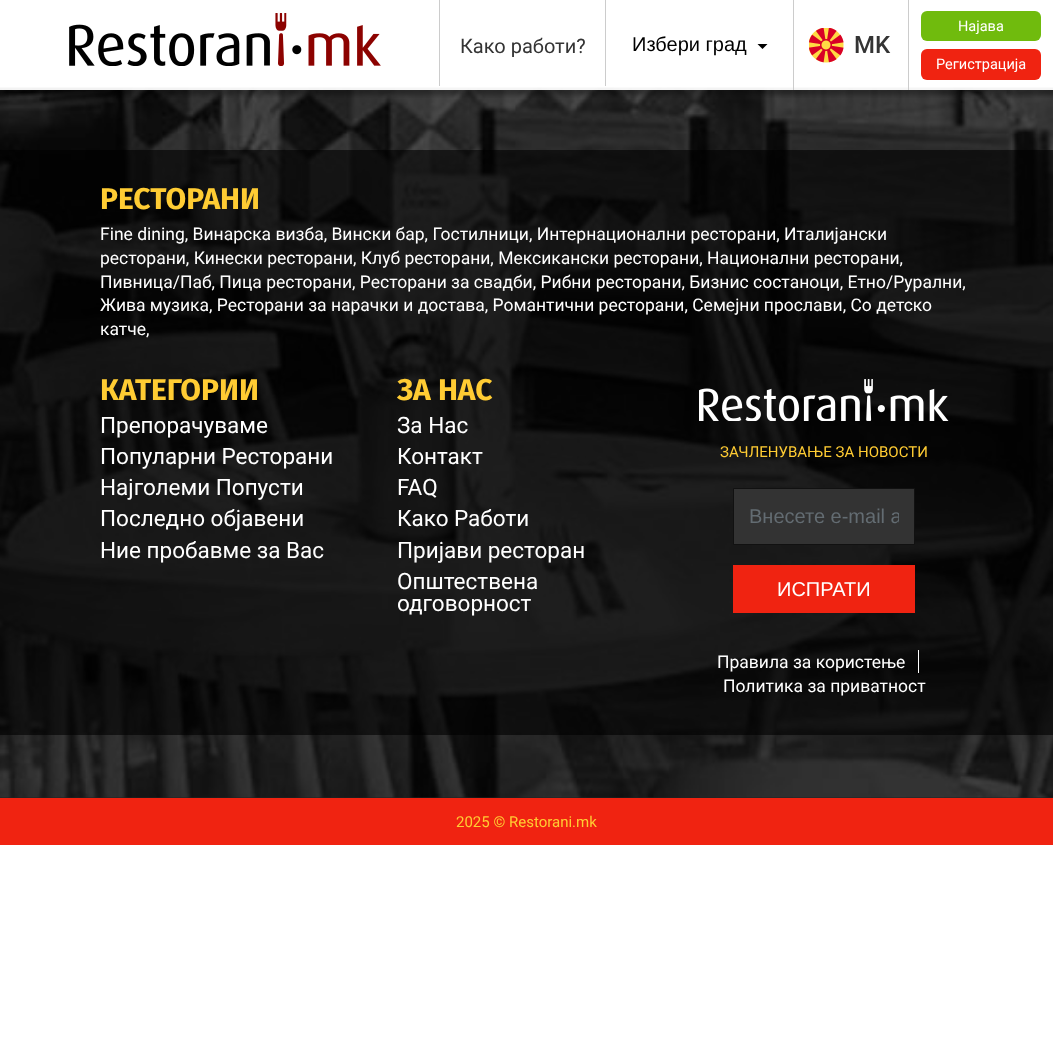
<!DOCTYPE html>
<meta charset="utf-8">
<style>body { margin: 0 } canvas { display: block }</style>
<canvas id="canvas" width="1053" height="1062"></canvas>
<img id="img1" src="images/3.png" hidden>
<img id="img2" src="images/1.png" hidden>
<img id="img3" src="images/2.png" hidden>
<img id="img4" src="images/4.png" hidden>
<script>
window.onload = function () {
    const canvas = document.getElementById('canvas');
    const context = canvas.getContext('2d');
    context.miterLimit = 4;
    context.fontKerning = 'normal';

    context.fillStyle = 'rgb(255, 255, 255)';
    context.fillRect(0, 0, 1053, 1062);
    context.fillStyle = 'rgb(34, 34, 34)';
    context.fillRect(0, 797, 1053, 1);
    context.drawImage(document.getElementById('img1'), 0, 87, 1053, 711);
    context.save();
    context.beginPath();
    context.rect(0, 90, 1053, 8);
    context.clip();
    context.fillStyle = 'rgba(0, 0, 0, 0.3)';
    context.filter = 'blur(2px)';
    context.beginPath();
    context.rect(3, 5, 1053, 90);
    context.fill();
    context.filter = 'none';
    context.restore();
    context.fillStyle = 'rgba(255, 255, 255, 0.95)';
    context.fillRect(0, 87, 1053, 3);
    context.drawImage(document.getElementById('img2'), 69, 13, 312, 53);
    context.fillStyle = 'rgb(204, 204, 204)';
    context.fillRect(605, 0, 1, 86);
    context.fillRect(439, 0, 1, 86);
    context.fillStyle = 'rgb(0, 0, 0)';
    context.beginPath();
    context.moveTo(757.5, 44);
    context.lineTo(767.5, 44);
    context.lineTo(762.5, 49);
    context.closePath();
    context.fill();
    context.fillStyle = 'rgb(204, 204, 204)';
    context.fillRect(793, 0, 1, 90);
    context.drawImage(document.getElementById('img3'), 809, 28, 35, 35);
    context.fillRect(908, 0, 1, 90);
    context.fillStyle = 'rgb(112, 187, 13)';
    context.beginPath();
    context.roundRect(921, 11, 120, 30, 6);
    context.fill();
    context.fillStyle = 'rgb(240, 35, 17)';
    context.beginPath();
    context.roundRect(921, 49, 120, 31, 6);
    context.fill();
    context.fillStyle = 'rgba(0, 0, 0, 0.6)';
    context.fillRect(0, 150, 1053, 585);
    context.drawImage(document.getElementById('img4'), 699, 379, 250, 42);
    context.fillStyle = 'rgb(51, 51, 51)';
    context.beginPath();
    context.rect(733.5, 488.5, 181, 56);
    context.fill();
    context.strokeStyle = 'rgb(17, 17, 17)';
    context.stroke();
    context.fillStyle = 'rgb(240, 35, 17)';
    context.fillRect(733, 565, 182, 48);
    context.fillStyle = 'rgb(255, 255, 255)';
    context.fillRect(918, 650, 1, 23);
    context.fillStyle = 'rgb(240, 35, 17)';
    context.fillRect(0, 798, 1053, 47);
    context.font = '20px Roboto';
    context.fillStyle = 'rgb(52, 52, 52)';
    context.fillText('Како работи?', 460, 53);
    context.font = '20px Liberation Sans';
    context.fillStyle = 'rgb(0, 0, 0)';
    context.fillText('Избери град', 632, 51);
    context.font = '500 24px Roboto';
    context.fillStyle = 'rgb(52, 52, 52)';
    context.fillText('MK', 854, 53);
    context.font = '14.5px Roboto';
    context.fillStyle = 'rgb(255, 255, 255)';
    context.fillText('Најава', 958, 31);
    context.fillText('Регистрација', 936, 69);
    context.font = 'bold 30px Fira Sans';
    context.fillStyle = 'rgb(255, 204, 51)';
    context.fillText('РЕСТОРАНИ', 100, 209);
    context.font = '17.5px Roboto';
    context.fillStyle = 'rgb(255, 255, 255)';
    context.fillText('Fine dining, Винарска визба, Вински бар, Гостилници, Интернационални ресторани, Италијански', 100, 240);
    context.fillText('ресторани, Кинески ресторани, Клуб ресторани, Мексикански ресторани, Национални ресторани,', 100, 264);
    context.fillText('Пивница/Паб, Пица ресторани, Ресторани за свадби, Рибни ресторани, Бизнис состаноци, Етно/Рурални,', 100, 288);
    context.fillText('Жива музика, Ресторани за нарачки и достава, Романтични ресторани, Семејни прослави, Со детско', 100, 311);
    context.fillText('катче,', 100, 335);
    context.font = 'bold 30px Fira Sans';
    context.fillStyle = 'rgb(255, 204, 51)';
    context.fillText('КАТЕГОРИИ', 100, 400);
    context.font = '22.5px Roboto';
    context.fillStyle = 'rgb(255, 255, 255)';
    context.fillText('Препорачуваме', 100, 433);
    context.fillText('Популарни Ресторани', 100, 464);
    context.fillText('Најголеми Попусти', 100, 495);
    context.fillText('Последно објавени', 100, 526);
    context.fillText('Ние пробавме за Вас', 100, 558);
    context.font = 'bold 30px Fira Sans';
    context.fillStyle = 'rgb(255, 204, 51)';
    context.fillText('ЗА НАС', 397, 400);
    context.font = '22.5px Roboto';
    context.fillStyle = 'rgb(255, 255, 255)';
    context.fillText('За Нас', 397, 433);
    context.fillText('Контакт', 397, 464);
    context.fillText('FAQ', 397, 495);
    context.fillText('Како Работи', 397, 526);
    context.fillText('Пријави ресторан', 397, 558);
    context.fillText('Општествена', 397, 589);
    context.fillText('одговорност', 397, 611);
    context.font = '15px Roboto';
    context.fillStyle = 'rgb(255, 204, 51)';
    context.fillText('ЗАЧЛЕНУВАЊЕ ЗА НОВОСТИ', 720, 457);
    context.save();
    context.beginPath();
    context.rect(749, 505, 150, 23);
    context.clip();
    context.font = '20px Liberation Sans';
    context.fillStyle = 'rgb(99, 108, 114)';
    context.fillText('Внесете e-mail а', 749, 523);
    context.restore();
    context.font = '20px Liberation Sans';
    context.fillStyle = 'rgb(255, 255, 255)';
    context.fillText('ИСПРАТИ', 777, 596);
    context.font = '17.5px Roboto';
    context.fillText('Правила за користење', 717, 668);
    context.fillText('Политика за приватност', 723, 692);
    context.font = '15px Roboto';
    context.fillStyle = 'rgb(255, 204, 51)';
    context.fillText('2025 © Restorani.mk', 456, 827);
};
</script>
